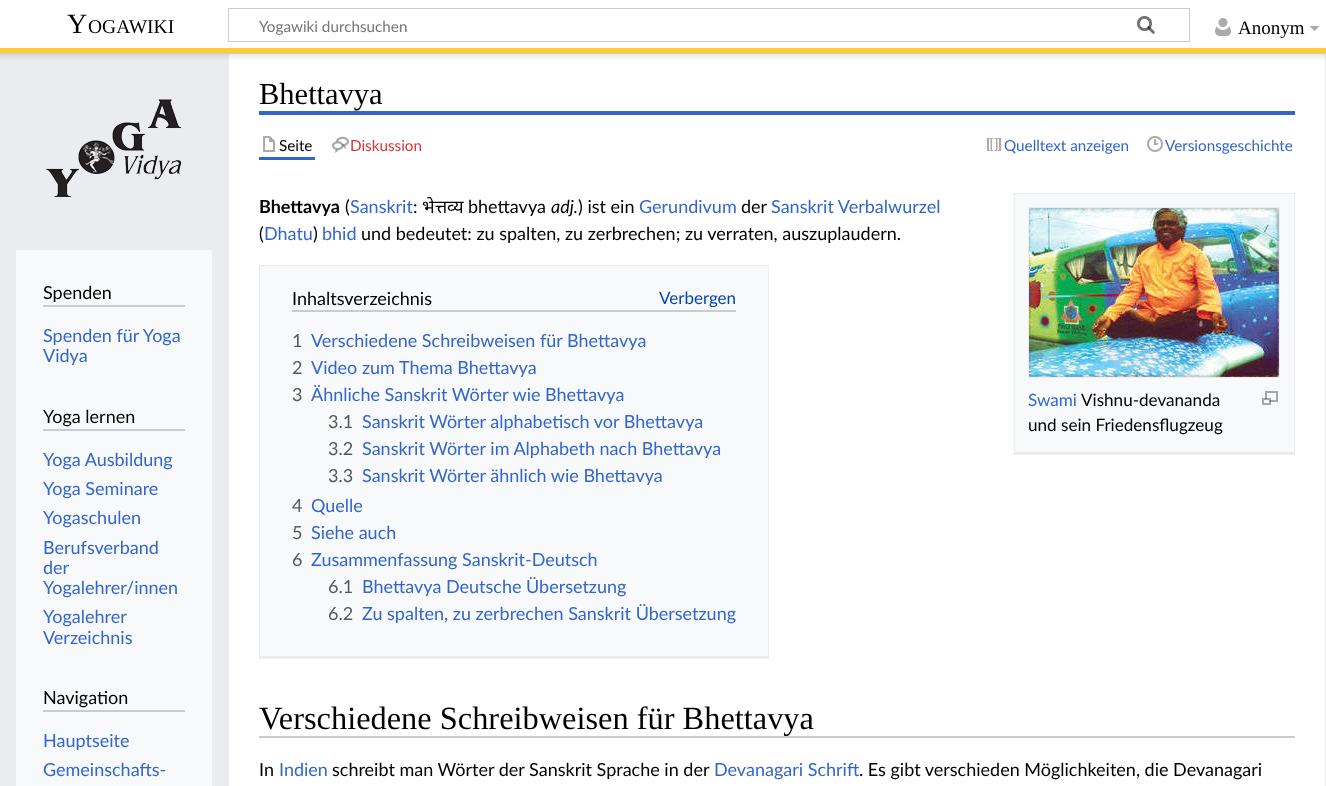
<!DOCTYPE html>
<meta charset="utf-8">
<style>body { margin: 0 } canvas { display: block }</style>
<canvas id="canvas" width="1326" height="786"></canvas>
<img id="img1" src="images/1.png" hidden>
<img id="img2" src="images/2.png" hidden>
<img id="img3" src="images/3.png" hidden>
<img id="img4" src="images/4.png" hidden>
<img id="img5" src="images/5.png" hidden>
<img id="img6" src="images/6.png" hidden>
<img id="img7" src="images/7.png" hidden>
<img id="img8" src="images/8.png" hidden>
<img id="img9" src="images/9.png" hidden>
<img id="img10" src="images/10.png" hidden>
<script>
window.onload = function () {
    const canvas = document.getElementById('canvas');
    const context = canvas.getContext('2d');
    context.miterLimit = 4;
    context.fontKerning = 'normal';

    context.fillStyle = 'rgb(234, 236, 240)';
    context.fillRect(0, 0, 1326, 786);
    context.fillStyle = 'rgb(255, 255, 255)';
    context.fillRect(229, 54, 1096, 732);
    context.fillStyle = 'rgba(0, 0, 0, 0.2)';
    context.filter = 'blur(1px)';
    context.beginPath();
    context.rect(0, 48, 1326, 5);
    context.fill();
    context.filter = 'none';
    context.fillStyle = 'rgba(0, 0, 0, 0.07)';
    context.filter = 'blur(1.5px)';
    context.beginPath();
    context.rect(-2, 49, 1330, 9);
    context.fill();
    context.filter = 'none';
    context.fillStyle = 'rgb(255, 255, 255)';
    context.fillRect(0, 0, 1326, 48);
    context.strokeStyle = 'rgb(200, 204, 209)';
    context.strokeRect(228.5, 8.5, 961, 33);
    context.drawImage(document.getElementById('img1'), 1137, 16, 18, 18);
    context.drawImage(document.getElementById('img2'), 1137, 16, 18, 18);
    context.drawImage(document.getElementById('img3'), 1215, 18, 16, 18);
    context.fillStyle = 'rgb(171, 171, 171)';
    context.beginPath();
    context.moveTo(1319.5, 26);
    context.lineTo(1314.5, 31);
    context.lineTo(1309.5, 26);
    context.closePath();
    context.fill();
    context.fillStyle = 'rgb(255, 204, 50)';
    context.fillRect(0, 48, 1326, 5);
    context.drawImage(document.getElementById('img4'), 46, 99, 135, 98);
    context.fillStyle = 'rgb(248, 249, 250)';
    context.fillRect(16, 250, 196, 536);
    context.fillStyle = 'rgb(200, 204, 209)';
    context.fillRect(43, 305, 142, 2);
    context.fillRect(43, 429, 142, 2);
    context.fillRect(43, 710, 142, 2);
    context.fillStyle = 'rgb(51, 102, 204)';
    context.fillRect(259, 111, 1036, 4);
    context.fillRect(259, 157, 56, 3);
    context.drawImage(document.getElementById('img5'), 263, 136, 12, 16);
    context.drawImage(document.getElementById('img6'), 332, 136, 17, 17);
    context.drawImage(document.getElementById('img7'), 987, 138, 14, 13);
    context.drawImage(document.getElementById('img8'), 1147, 136, 16, 16);
    context.fillStyle = 'rgb(248, 249, 250)';
    context.fillRect(260, 266, 508, 390);
    context.fillStyle = 'rgb(234, 236, 240)';
    context.fillRect(259, 265, 510, 1);
    context.fillRect(768, 265, 1, 394);
    context.fillRect(259, 656, 510, 3);
    context.fillRect(259, 265, 1, 394);
    context.fillStyle = 'rgb(200, 204, 209)';
    context.fillRect(292, 310, 444, 2);
    context.fillStyle = 'rgb(248, 249, 250)';
    context.fillRect(1015, 194, 279, 258);
    context.fillStyle = 'rgb(234, 236, 240)';
    context.fillRect(1014, 193, 281, 1);
    context.fillRect(1294, 193, 1, 262);
    context.fillRect(1014, 452, 281, 3);
    context.fillRect(1014, 193, 1, 262);
    context.strokeStyle = 'rgb(234, 236, 240)';
    context.strokeRect(1028.5, 207.5, 251, 170);
    context.drawImage(document.getElementById('img9'), 1029, 208, 250, 169);
    context.drawImage(document.getElementById('img10'), 1262, 391, 16, 14);
    context.fillStyle = 'rgb(200, 204, 209)';
    context.fillRect(259, 736, 1036, 2);
    context.font = '28px Liberation Serif';
    context.fillStyle = 'rgb(0, 0, 0)';
    context.fillText('Y', 67, 33);
    context.font = '19.5px Liberation Serif';
    context.fillText('OGAWIKI', 88, 33);
    context.font = '15.25px Lato';
    context.fillStyle = 'rgb(117, 117, 117)';
    context.fillText('Yogawiki durchsuchen', 259, 32);
    context.font = '19px Liberation Serif';
    context.fillStyle = 'rgb(0, 0, 0)';
    context.fillText('Anonym', 1238, 34);
    context.font = '18px Lato';
    context.fillText('Spenden', 43, 299);
    context.fillStyle = 'rgb(51, 102, 204)';
    context.fillText('Spenden für Yoga', 43, 342);
    context.fillText('Vidya', 43, 362);
    context.fillStyle = 'rgb(0, 0, 0)';
    context.fillText('Yoga lernen', 43, 423);
    context.fillStyle = 'rgb(51, 102, 204)';
    context.fillText('Yoga Ausbildung', 43, 466);
    context.fillText('Yoga Seminare', 43, 495);
    context.fillText('Yogaschulen', 43, 524);
    context.fillText('Berufsverband', 43, 554);
    context.fillText('der', 43, 574);
    context.fillText('Yogalehrer/innen', 43, 594);
    context.fillText('Yogalehrer', 43, 623);
    context.fillText('Verzeichnis', 43, 644);
    context.fillStyle = 'rgb(0, 0, 0)';
    context.fillText('Navigation', 43, 704);
    context.fillStyle = 'rgb(51, 102, 204)';
    context.fillText('Hauptseite', 43, 747);
    context.fillText('Gemeinschafts-', 43, 776);
    context.font = '30.5px Liberation Serif';
    context.fillStyle = 'rgb(0, 0, 0)';
    context.fillText('Bhettavya', 259, 104);
    context.font = '15.25px Lato';
    context.fillText('Seite', 279, 151);
    context.fillStyle = 'rgb(221, 51, 51)';
    context.fillText('Diskussion', 350, 151);
    context.fillStyle = 'rgb(51, 102, 204)';
    context.fillText('Quelltext anzeigen', 1004, 151);
    context.fillText('Versionsgeschichte', 1165, 151);
    context.font = 'bold 18px Lato';
    context.fillStyle = 'rgb(0, 0, 0)';
    context.fillText('Bhettavya', 259, 213);
    context.font = '18px Lato';
    context.fillText('(', 345, 213);
    context.fillStyle = 'rgb(51, 102, 204)';
    context.fillText('Sanskrit', 350, 213);
    context.fillStyle = 'rgb(0, 0, 0)';
    context.fillText('bhettavya', 468, 213);
    context.font = 'italic 18px Lato';
    context.fillText('adj.', 551, 213);
    context.font = '18px Lato';
    context.fillText(') ist ein', 578, 213);
    context.fillStyle = 'rgb(51, 102, 204)';
    context.fillText('Gerundivum', 639, 213);
    context.fillStyle = 'rgb(0, 0, 0)';
    context.fillText('der', 741, 213);
    context.fillStyle = 'rgb(51, 102, 204)';
    context.fillText('Sanskrit Verbalwurzel', 771, 213);
    context.fillStyle = 'rgb(0, 0, 0)';
    context.fillText(':', 413, 213);
    context.font = '18px Noto Sans';
    context.fillText('भेत्तव्य', 422, 213);
    context.font = '18px Lato';
    context.fillText('(', 259, 240);
    context.fillStyle = 'rgb(51, 102, 204)';
    context.fillText('Dhatu', 264, 240);
    context.fillStyle = 'rgb(0, 0, 0)';
    context.fillText(')', 313, 240);
    context.fillStyle = 'rgb(51, 102, 204)';
    context.fillText('bhid', 322, 240);
    context.fillStyle = 'rgb(0, 0, 0)';
    context.fillText('und bedeutet: zu spalten, zu zerbrechen; zu verraten, auszuplaudern.', 361, 240);
    context.fillText('Inhaltsverzeichnis', 292, 305);
    context.font = '17px Lato';
    context.fillStyle = 'rgb(6, 69, 173)';
    context.fillText('Verbergen', 659, 304);
    context.font = '18px Lato';
    context.fillStyle = 'rgb(84, 89, 93)';
    context.fillText('1', 292, 347);
    context.fillStyle = 'rgb(51, 102, 204)';
    context.fillText('Verschiedene Schreibweisen für Bhettavya', 311, 347);
    context.fillStyle = 'rgb(84, 89, 93)';
    context.fillText('2', 292, 374);
    context.fillStyle = 'rgb(51, 102, 204)';
    context.fillText('Video zum Thema Bhettavya', 311, 374);
    context.fillStyle = 'rgb(84, 89, 93)';
    context.fillText('3', 292, 401);
    context.fillStyle = 'rgb(51, 102, 204)';
    context.fillText('Ähnliche Sanskrit Wörter wie Bhettavya', 311, 401);
    context.fillStyle = 'rgb(84, 89, 93)';
    context.fillText('3.1', 328, 428);
    context.fillStyle = 'rgb(51, 102, 204)';
    context.fillText('Sanskrit Wörter alphabetisch vor Bhettavya', 362, 428);
    context.fillStyle = 'rgb(84, 89, 93)';
    context.fillText('3.2', 328, 455);
    context.fillStyle = 'rgb(51, 102, 204)';
    context.fillText('Sanskrit Wörter im Alphabeth nach Bhettavya', 362, 455);
    context.fillStyle = 'rgb(84, 89, 93)';
    context.fillText('3.3', 328, 482);
    context.fillStyle = 'rgb(51, 102, 204)';
    context.fillText('Sanskrit Wörter ähnlich wie Bhettavya', 362, 482);
    context.fillStyle = 'rgb(84, 89, 93)';
    context.fillText('4', 292, 512);
    context.fillStyle = 'rgb(51, 102, 204)';
    context.fillText('Quelle', 311, 512);
    context.fillStyle = 'rgb(84, 89, 93)';
    context.fillText('5', 292, 539);
    context.fillStyle = 'rgb(51, 102, 204)';
    context.fillText('Siehe auch', 311, 539);
    context.fillStyle = 'rgb(84, 89, 93)';
    context.fillText('6', 292, 566);
    context.fillStyle = 'rgb(51, 102, 204)';
    context.fillText('Zusammenfassung Sanskrit-Deutsch', 311, 566);
    context.fillStyle = 'rgb(84, 89, 93)';
    context.fillText('6.1', 328, 593);
    context.fillStyle = 'rgb(51, 102, 204)';
    context.fillText('Bhettavya Deutsche Übersetzung', 362, 593);
    context.fillStyle = 'rgb(84, 89, 93)';
    context.fillText('6.2', 328, 620);
    context.fillStyle = 'rgb(51, 102, 204)';
    context.fillText('Zu spalten, zu zerbrechen Sanskrit Übersetzung', 362, 620);
    context.font = '17.1px Lato';
    context.fillText('Swami', 1028, 406);
    context.fillStyle = 'rgb(0, 0, 0)';
    context.fillText('Vishnu-devananda', 1081, 406);
    context.fillText('und sein Friedensflugzeug', 1028, 431);
    context.font = '32.4px Liberation Serif';
    context.fillText('Verschiedene Schreibweisen für Bhettavya', 259, 729);
    context.font = '18px Lato';
    context.fillText('In', 259, 776);
    context.fillStyle = 'rgb(51, 102, 204)';
    context.fillText('Indien', 279, 776);
    context.fillStyle = 'rgb(0, 0, 0)';
    context.fillText('schreibt man Wörter der Sanskrit Sprache in der', 332, 776);
    context.fillStyle = 'rgb(51, 102, 204)';
    context.fillText('Devanagari Schrift', 714, 776);
    context.fillStyle = 'rgb(0, 0, 0)';
    context.fillText('. Es gibt verschieden Möglichkeiten, die Devanagari', 859, 776);
};
</script>
